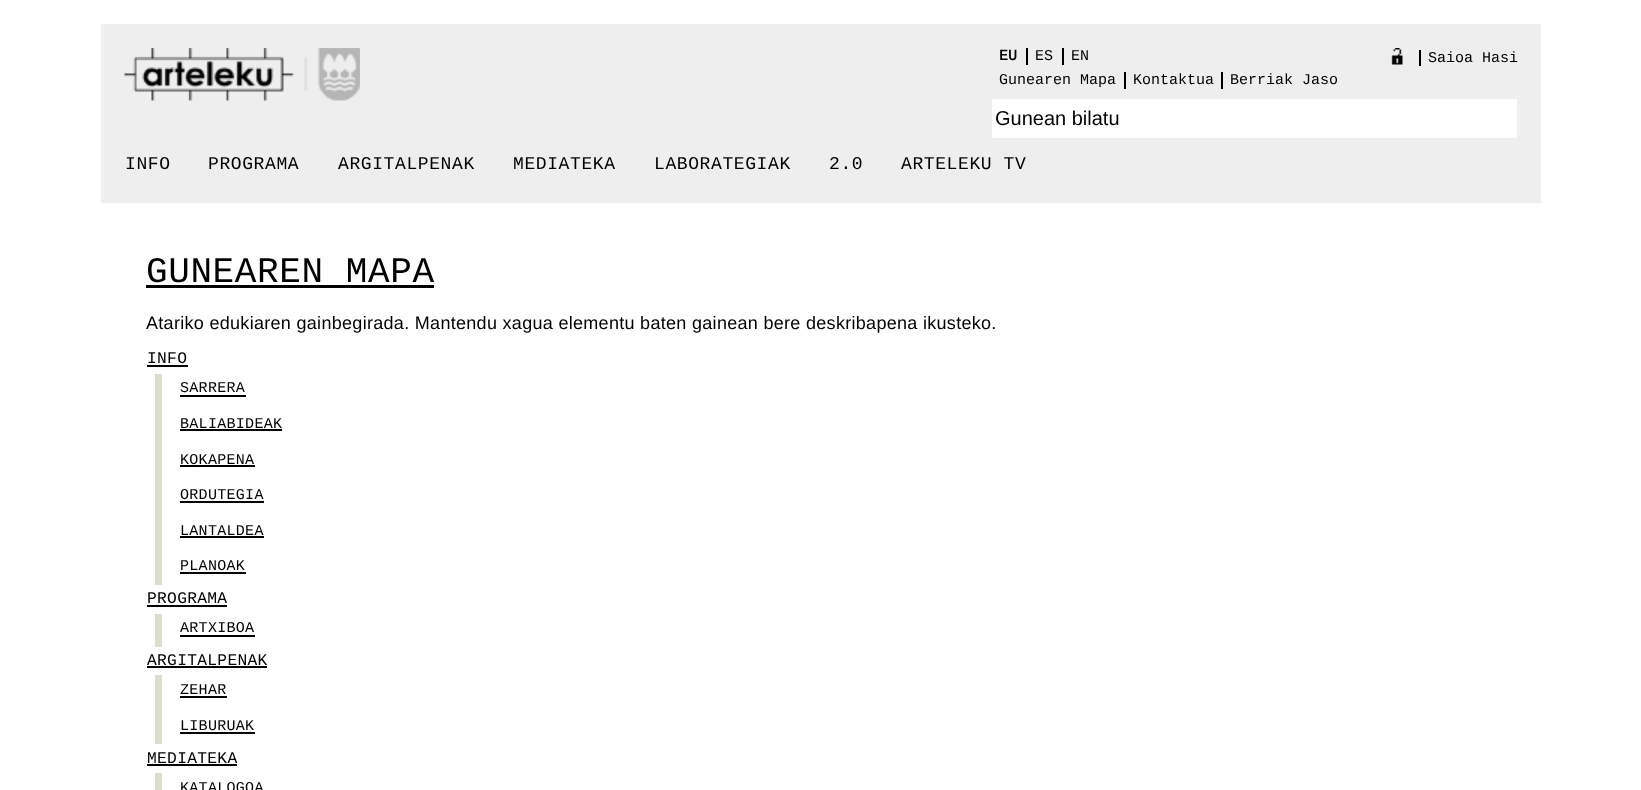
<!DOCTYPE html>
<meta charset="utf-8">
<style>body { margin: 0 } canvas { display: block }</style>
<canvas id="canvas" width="1641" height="790"></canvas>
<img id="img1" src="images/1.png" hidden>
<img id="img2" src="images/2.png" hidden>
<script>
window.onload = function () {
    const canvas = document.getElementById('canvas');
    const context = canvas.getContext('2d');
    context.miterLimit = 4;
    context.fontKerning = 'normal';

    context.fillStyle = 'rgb(255, 255, 255)';
    context.fillRect(0, 0, 1641, 790);
    context.fillStyle = 'rgb(238, 238, 238)';
    context.fillRect(101, 24, 1440, 179);
    context.drawImage(document.getElementById('img1'), 124, 48, 236, 53);
    context.fillStyle = 'rgb(0, 0, 0)';
    context.fillRect(1026, 48, 2, 17);
    context.fillRect(1062, 48, 2, 17);
    context.drawImage(document.getElementById('img2'), 1391, 48, 12, 17);
    context.fillRect(1419, 50, 2, 16);
    context.fillRect(1124, 72, 2, 17);
    context.fillRect(1221, 72, 2, 17);
    context.fillStyle = 'rgb(255, 255, 255)';
    context.fillRect(992, 99, 525, 39);
    context.fillStyle = 'rgb(0, 0, 0)';
    context.fillRect(146, 285, 288, 3);
    context.fillRect(147, 365, 41, 2);
    context.fillStyle = 'rgb(221, 221, 205)';
    context.fillRect(155, 374, 7, 211);
    context.fillStyle = 'rgb(0, 0, 0)';
    context.fillRect(180, 395, 66, 2);
    context.fillRect(180, 429, 102, 2);
    context.fillRect(180, 465, 75, 2);
    context.fillRect(180, 501, 84, 2);
    context.fillRect(180, 536, 84, 2);
    context.fillRect(180, 572, 66, 2);
    context.fillRect(147, 605, 80, 2);
    context.fillStyle = 'rgb(221, 221, 205)';
    context.fillRect(155, 614, 7, 33);
    context.fillStyle = 'rgb(0, 0, 0)';
    context.fillRect(180, 635, 75, 2);
    context.fillRect(147, 666, 120, 2);
    context.fillStyle = 'rgb(221, 221, 205)';
    context.fillRect(155, 675, 7, 69);
    context.fillStyle = 'rgb(0, 0, 0)';
    context.fillRect(180, 696, 47, 2);
    context.fillRect(180, 732, 75, 2);
    context.fillRect(147, 764, 90, 2);
    context.fillStyle = 'rgb(221, 221, 205)';
    context.fillRect(155, 773, 7, 17);
    context.font = 'bold 15px Liberation Mono';
    context.fillStyle = 'rgb(0, 0, 0)';
    context.fillText('EU', 999, 60);
    context.font = '15px Liberation Mono';
    context.fillText('ES', 1035, 60);
    context.fillText('EN', 1071, 60);
    context.fillText('Saioa Hasi', 1428, 62);
    context.fillText('Gunearen Mapa', 999, 84);
    context.fillText('Kontaktua', 1133, 84);
    context.fillText('Berriak Jaso', 1230, 84);
    context.font = '20px "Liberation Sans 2"';
    context.fillText('Gunean bilatu', 995, 125);
    context.letterSpacing = '0.6px';
    context.font = '18px Liberation Mono';
    context.fillText('INFO', 125, 169);
    context.fillText('PROGRAMA', 208, 169);
    context.fillText('ARGITALPENAK', 338, 169);
    context.fillText('MEDIATEKA', 513, 169);
    context.fillText('LABORATEGIAK', 654, 169);
    context.fillText('2.0', 829, 169);
    context.fillText('ARTELEKU TV', 901, 169);
    context.font = '36px Liberation Mono';
    context.fillText('GUNEAREN MAPA', 146, 282);
    context.letterSpacing = '0.3px';
    context.font = '18px Liberation Sans';
    context.fillText('Atariko edukiaren gainbegirada. Mantendu xagua elementu baten gainean bere deskribapena ikusteko.', 146, 329);
    context.font = '16.25px Liberation Mono';
    context.fillText('INFO', 147, 363);
    context.font = '15px Liberation Mono';
    context.fillText('SARRERA', 180, 392);
    context.fillText('BALIABIDEAK', 180, 428);
    context.fillText('KOKAPENA', 180, 464);
    context.fillText('ORDUTEGIA', 180, 499);
    context.fillText('LANTALDEA', 180, 535);
    context.fillText('PLANOAK', 180, 570);
    context.font = '16.25px Liberation Mono';
    context.fillText('PROGRAMA', 147, 603);
    context.font = '15px Liberation Mono';
    context.fillText('ARTXIBOA', 180, 632);
    context.font = '16.25px Liberation Mono';
    context.fillText('ARGITALPENAK', 147, 665);
    context.font = '15px Liberation Mono';
    context.fillText('ZEHAR', 180, 694);
    context.fillText('LIBURUAK', 180, 730);
    context.font = '16.25px Liberation Mono';
    context.fillText('MEDIATEKA', 147, 763);
    context.font = '15px Liberation Mono';
    context.fillText('KATALOGOA', 180, 792);
};
</script>
